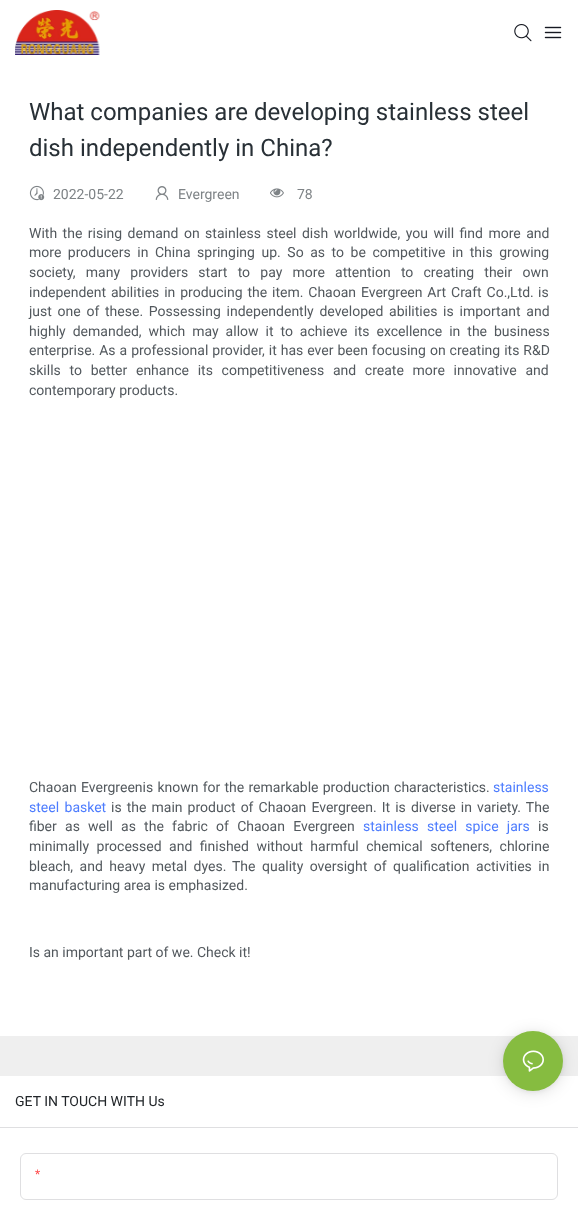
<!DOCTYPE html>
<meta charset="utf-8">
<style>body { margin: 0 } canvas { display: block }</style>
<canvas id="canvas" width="578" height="1212"></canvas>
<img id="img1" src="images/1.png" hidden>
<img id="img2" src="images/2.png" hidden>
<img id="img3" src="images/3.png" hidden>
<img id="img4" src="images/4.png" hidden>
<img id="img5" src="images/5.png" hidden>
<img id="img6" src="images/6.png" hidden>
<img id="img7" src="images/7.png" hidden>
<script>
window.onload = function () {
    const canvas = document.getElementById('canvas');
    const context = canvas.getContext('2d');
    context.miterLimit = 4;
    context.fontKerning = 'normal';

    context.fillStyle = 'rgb(255, 255, 255)';
    context.fillRect(0, 0, 578, 1212);
    context.drawImage(document.getElementById('img1'), 15, 10, 85, 45);
    context.drawImage(document.getElementById('img2'), 514, 24, 18, 18);
    context.drawImage(document.getElementById('img3'), 544, 26, 18, 13);
    context.fillStyle = 'rgb(239, 239, 239)';
    context.fillRect(0, 1036, 578, 40);
    context.drawImage(document.getElementById('img4'), 29, 185, 16, 16);
    context.drawImage(document.getElementById('img5'), 155, 186, 14, 14);
    context.drawImage(document.getElementById('img6'), 270, 188, 14, 10);
    context.fillStyle = 'rgb(223, 223, 225)';
    context.fillRect(0, 1127, 578, 1);
    context.beginPath();
    context.roundRect(20.5, 1153.5, 537, 46, 5.5);
    context.strokeStyle = 'rgb(223, 223, 225)';
    context.stroke();
    context.fillStyle = 'rgba(0, 0, 0, 0.12)';
    context.filter = 'blur(8px)';
    context.beginPath();
    context.roundRect(503, 1033, 60, 60, 30);
    context.fill();
    context.filter = 'none';
    context.fillStyle = 'rgba(0, 0, 0, 0.06)';
    context.filter = 'blur(2px)';
    context.beginPath();
    context.roundRect(503, 1032, 60, 60, 30);
    context.fill();
    context.filter = 'none';
    context.fillStyle = 'rgb(134, 188, 64)';
    context.beginPath();
    context.arc(533, 1061, 30, 0, 2 * Math.PI);
    context.fill();
    context.drawImage(document.getElementById('img7'), 522, 1050, 22, 22);
    context.font = '24px Roboto';
    context.fillStyle = 'rgb(40, 48, 54)';
    context.fillText('What companies are developing stainless steel', 29, 120);
    context.fillText('dish independently in China?', 29, 156);
    context.font = '14px Roboto';
    context.fillStyle = 'rgb(126, 131, 134)';
    context.fillText('2022-05-22', 53, 199);
    context.fillText('Evergreen', 178, 199);
    context.fillText('78', 297, 199);
    context.wordSpacing = '2px';
    context.fillStyle = 'rgb(83, 89, 94)';
    context.fillText('With the rising demand on stainless steel dish worldwide, you will find more and', 29, 238);
    context.wordSpacing = '3.1px';
    context.fillText('more producers in China springing up. So as to be competitive in this growing', 29, 257);
    context.wordSpacing = '6.75px';
    context.fillText('society, many providers start to pay more attention to creating their own', 29, 277);
    context.wordSpacing = '1.4px';
    context.fillText('independent abilities in producing the item. Chaoan Evergreen Art Craft Co.,Ltd.', 29, 297);
    context.wordSpacing = '0px';
    context.fillText('is', 538, 297);
    context.wordSpacing = '2.25px';
    context.fillText('just one of these. Possessing independently developed abilities is important and', 29, 316);
    context.wordSpacing = '3.5px';
    context.fillText('highly demanded, which may allow it to achieve its excellence in the business', 29, 336);
    context.wordSpacing = '0.5px';
    context.fillText('enterprise. As a professional provider, it has ever been focusing on creating its R&D', 29, 355);
    context.wordSpacing = '5.25px';
    context.fillText('skills to better enhance its competitiveness and create more innovative and', 29, 375);
    context.wordSpacing = '0px';
    context.fillText('contemporary products.', 29, 395);
    context.wordSpacing = '0.75px';
    context.fillText('Chaoan Evergreenis known for the remarkable production characteristics.', 29, 792);
    context.wordSpacing = '0px';
    context.fillStyle = 'rgb(77, 124, 254)';
    context.fillText('stainless', 493, 792);
    context.wordSpacing = '2px';
    context.fillText('steel basket', 29, 812);
    context.wordSpacing = '1.6px';
    context.fillStyle = 'rgb(83, 89, 94)';
    context.fillText('is the main product of Chaoan Evergreen. It is diverse in variety. The', 111, 812);
    context.wordSpacing = '4.75px';
    context.fillText('fiber as well as the fabric of Chaoan Evergreen', 29, 831);
    context.fillStyle = 'rgb(77, 124, 254)';
    context.fillText('stainless steel spice jars', 363, 831);
    context.wordSpacing = '0px';
    context.fillStyle = 'rgb(83, 89, 94)';
    context.fillText('is', 538, 831);
    context.wordSpacing = '4px';
    context.fillText('minimally processed and finished without harmful chemical softeners, chlorine', 29, 851);
    context.wordSpacing = '3px';
    context.fillText('bleach, and heavy metal dyes.', 29, 871);
    context.fillText('The quality oversight of qualification activities in', 232, 871);
    context.wordSpacing = '0px';
    context.fillText('manufacturing area is emphasized.', 29, 890);
    context.fillText('Is an important part of we. Check it!', 29, 957);
    context.fillStyle = 'rgb(33, 37, 41)';
    context.fillText('GET IN TOUCH WITH Us', 15, 1106);
    context.font = '12px Roboto';
    context.fillStyle = 'rgb(255, 77, 77)';
    context.fillText('*', 35, 1178);
};
</script>
